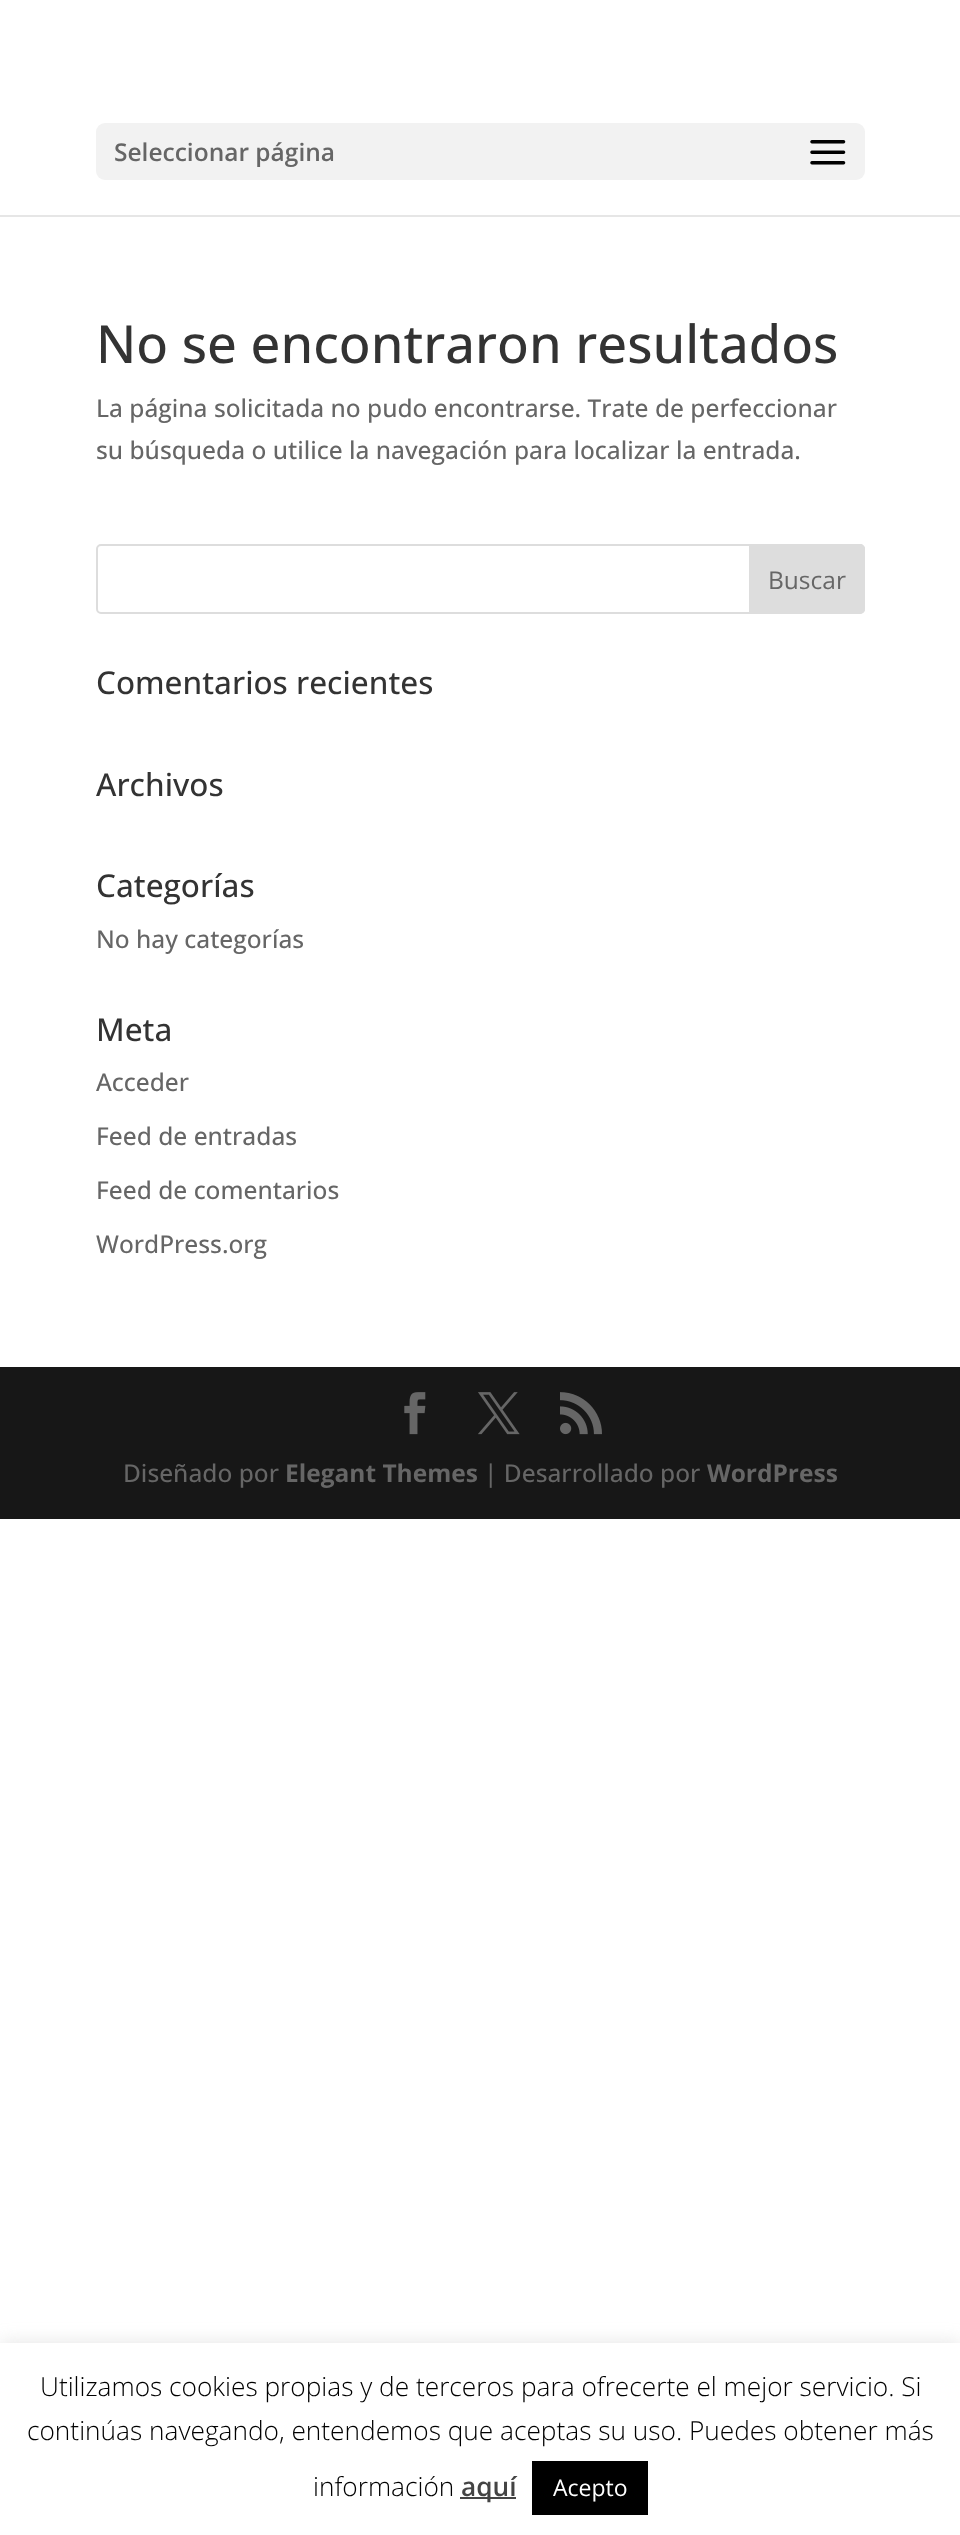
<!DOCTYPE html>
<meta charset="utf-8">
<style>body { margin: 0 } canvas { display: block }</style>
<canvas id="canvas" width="960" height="2535"></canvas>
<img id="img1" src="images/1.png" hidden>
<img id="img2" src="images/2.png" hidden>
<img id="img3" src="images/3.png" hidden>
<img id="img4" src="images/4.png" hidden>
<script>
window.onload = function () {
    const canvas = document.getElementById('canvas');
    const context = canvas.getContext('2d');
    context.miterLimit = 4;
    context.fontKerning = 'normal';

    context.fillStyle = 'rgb(255, 255, 255)';
    context.fillRect(0, 0, 960, 2535);
    context.fillStyle = 'rgb(230, 230, 230)';
    context.beginPath();
    context.moveTo(0, 215);
    context.lineTo(0, 217);
    context.lineTo(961, 217);
    context.lineTo(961, 2);
    context.lineTo(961, 215);
    context.closePath();
    context.fill();
    context.fillStyle = 'rgb(242, 242, 242)';
    context.beginPath();
    context.roundRect(96, 123, 769, 57, 9);
    context.fill();
    context.drawImage(document.getElementById('img1'), 810, 140, 36, 25);
    context.beginPath();
    context.roundRect(97, 545, 767, 68, 4);
    context.strokeStyle = 'rgb(221, 221, 221)';
    context.lineWidth = 2;
    context.stroke();
    context.fillStyle = 'rgb(221, 221, 221)';
    context.beginPath();
    context.roundRect(750, 545, 114, 68, [0, 4, 4, 0]);
    context.fill();
    context.stroke();
    context.fillStyle = 'rgb(23, 23, 23)';
    context.fillRect(0, 1367, 960, 152);
    context.drawImage(document.getElementById('img2'), 404, 1392, 22, 43);
    context.drawImage(document.getElementById('img3'), 478, 1392, 42, 43);
    context.drawImage(document.getElementById('img4'), 560, 1392, 42, 43);
    context.fillStyle = 'rgba(172, 171, 171, 0.3)';
    context.filter = 'blur(9px)';
    context.beginPath();
    context.rect(0, 2342, 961, 192);
    context.fill();
    context.filter = 'none';
    context.fillStyle = 'rgb(255, 255, 255)';
    context.fillRect(0, 2343, 960, 192);
    context.fillStyle = 'rgb(68, 68, 68)';
    context.fillRect(460, 2497, 56, 2);
    context.fillStyle = 'rgb(0, 0, 0)';
    context.fillRect(532, 2461, 116, 54);
    context.font = '600 24.5px Open Sans';
    context.fillStyle = 'rgb(102, 102, 102)';
    context.fillText('Seleccionar página', 114, 161);
    context.font = '500 52.5px Open Sans';
    context.fillStyle = 'rgb(51, 51, 51)';
    context.fillText('No se encontraron resultados', 96, 363);
    context.font = '500 24.5px Open Sans';
    context.fillStyle = 'rgb(102, 102, 102)';
    context.fillText('La página solicitada no pudo encontrarse. Trate de perfeccionar', 96, 417);
    context.fillText('su búsqueda o utilice la navegación para localizar la entrada.', 96, 459);
    context.font = '24.5px Open Sans';
    context.fillText('Buscar', 768, 589);
    context.font = '500 31.5px Open Sans';
    context.fillStyle = 'rgb(51, 51, 51)';
    context.fillText('Comentarios recientes', 96, 694);
    context.fillText('Archivos', 96, 796);
    context.fillText('Categorías', 96, 897);
    context.font = '500 24.5px Open Sans';
    context.fillStyle = 'rgb(102, 102, 102)';
    context.fillText('No hay categorías', 96, 948);
    context.font = '500 31.5px Open Sans';
    context.fillStyle = 'rgb(51, 51, 51)';
    context.fillText('Meta', 96, 1041);
    context.font = '500 24.5px Open Sans';
    context.fillStyle = 'rgb(102, 102, 102)';
    context.fillText('Acceder', 96, 1091);
    context.fillText('Feed de entradas', 96, 1145);
    context.fillText('Feed de comentarios', 96, 1199);
    context.fillText('WordPress.org', 96, 1253);
    context.fillText('Diseñado por', 123, 1482);
    context.font = 'bold 24.5px Open Sans';
    context.fillText('Elegant Themes', 285, 1482);
    context.font = '500 24.5px Open Sans';
    context.fillText('| Desarrollado por', 484, 1482);
    context.font = 'bold 24.5px Open Sans';
    context.fillText('WordPress', 707, 1482);
    context.font = '300 26.25px Open Sans';
    context.fillStyle = 'rgb(0, 0, 0)';
    context.fillText('Utilizamos cookies propias y de terceros para ofrecerte el mejor servicio. Si', 40, 2396);
    context.fillText('continúas navegando, entendemos que aceptas su uso. Puedes obtener más', 27, 2440);
    context.fillText('información', 313, 2496);
    context.font = '600 26.25px Open Sans';
    context.fillStyle = 'rgb(68, 68, 68)';
    context.fillText('aquí', 461, 2496);
    context.font = '23px Open Sans';
    context.fillStyle = 'rgb(255, 255, 255)';
    context.fillText('Acepto', 553, 2496);
};
</script>
